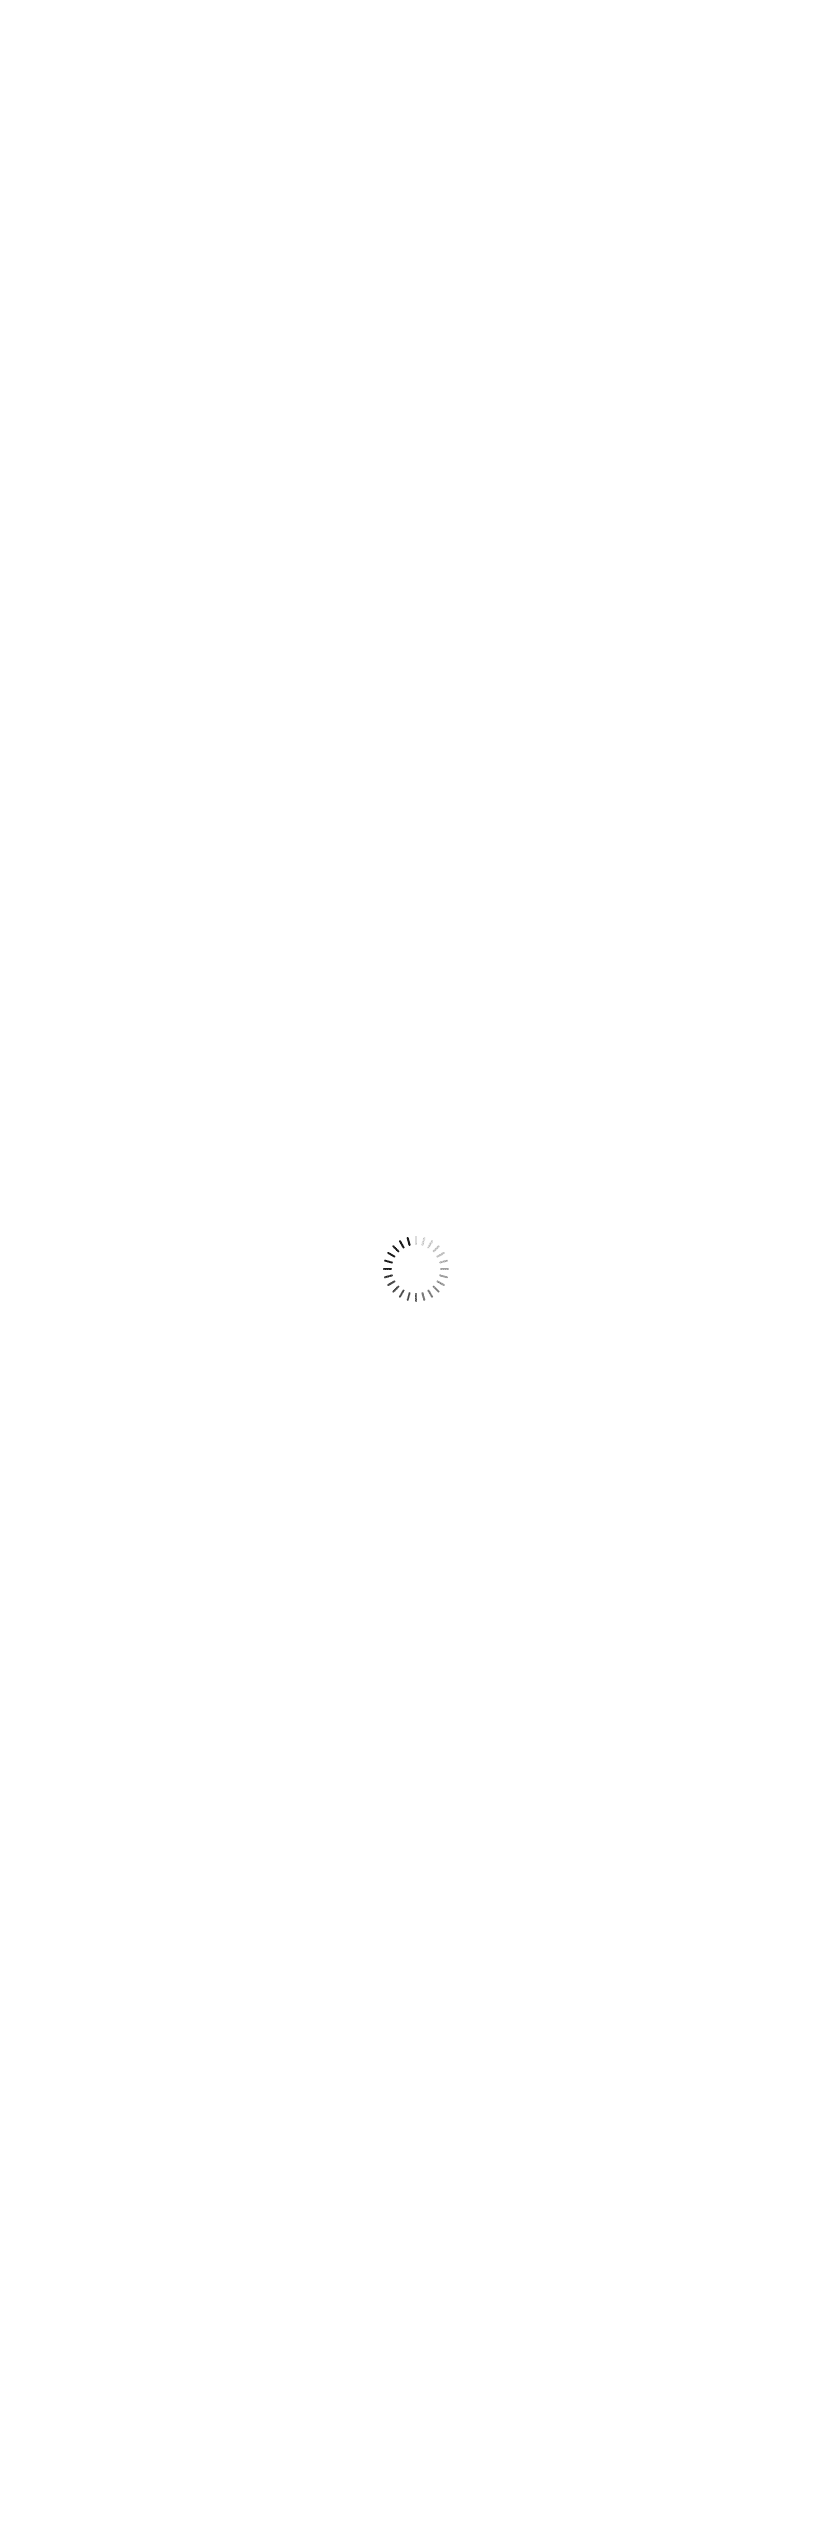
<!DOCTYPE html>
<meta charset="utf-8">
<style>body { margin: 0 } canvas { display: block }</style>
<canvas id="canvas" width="832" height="2537"></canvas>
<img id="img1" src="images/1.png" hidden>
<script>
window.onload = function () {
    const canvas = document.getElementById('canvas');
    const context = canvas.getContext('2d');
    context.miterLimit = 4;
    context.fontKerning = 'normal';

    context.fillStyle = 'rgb(255, 255, 255)';
    context.fillRect(0, 0, 832, 2537);
    context.drawImage(document.getElementById('img1'), 383, 1236, 66, 66);
};
</script>
